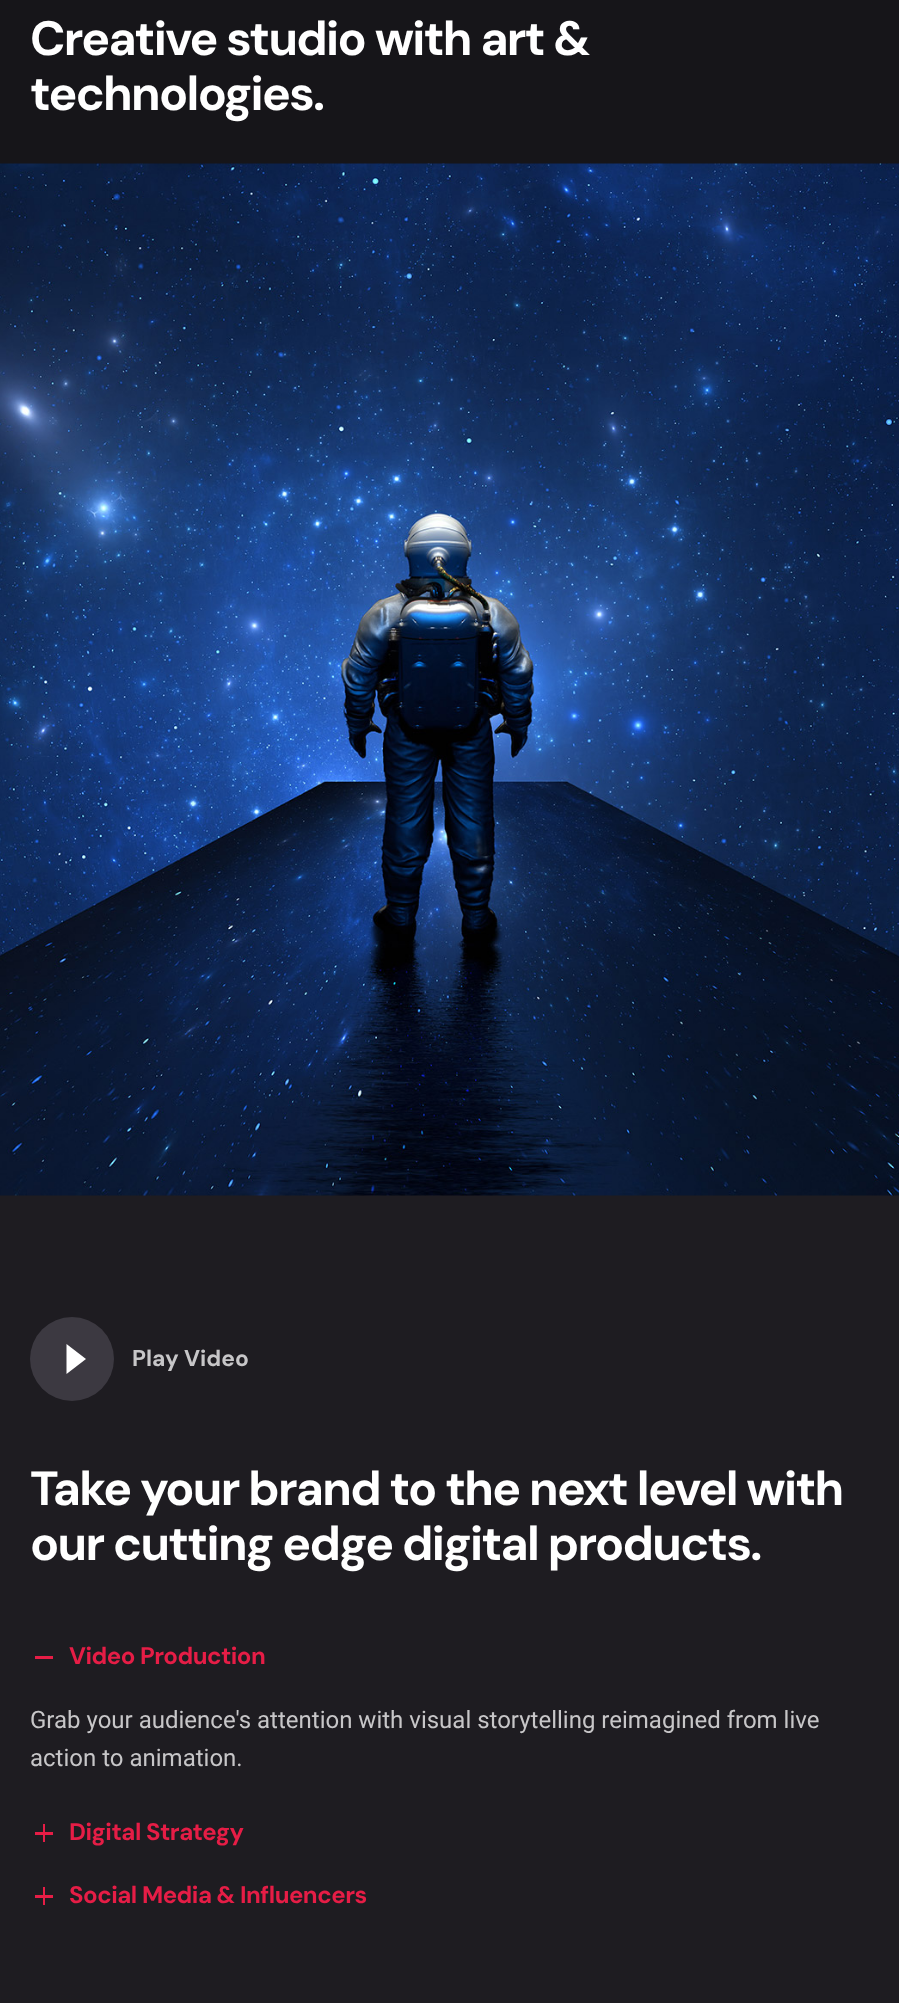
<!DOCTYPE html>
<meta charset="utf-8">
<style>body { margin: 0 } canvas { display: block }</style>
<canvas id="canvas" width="899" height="2003"></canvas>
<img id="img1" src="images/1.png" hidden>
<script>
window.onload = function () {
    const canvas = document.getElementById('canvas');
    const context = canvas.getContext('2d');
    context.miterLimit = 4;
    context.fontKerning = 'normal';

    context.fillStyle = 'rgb(22, 21, 25)';
    context.fillRect(0, 0, 899, 2003);
    context.fillStyle = 'rgb(30, 28, 33)';
    context.fillRect(0, 1195, 899, 808);
    context.drawImage(document.getElementById('img1'), 0, 163, 899, 1033);
    context.fillStyle = 'rgb(60, 57, 65)';
    context.beginPath();
    context.arc(72, 1359, 42, 0, 2 * Math.PI);
    context.fill();
    context.fillStyle = 'rgb(255, 255, 255)';
    context.beginPath();
    context.moveTo(66.5, 1374);
    context.lineTo(86, 1359);
    context.lineTo(66.5, 1344);
    context.closePath();
    context.fill();
    context.fillStyle = 'rgb(230, 29, 70)';
    context.fillRect(35, 1656, 18, 3);
    context.fillRect(43, 1824, 2, 18);
    context.fillRect(35, 1832, 18, 3);
    context.fillRect(43, 1887, 2, 18);
    context.fillRect(35, 1895, 18, 3);
    context.letterSpacing = '-1.7px';
    context.font = 'bold 48px DM Sans';
    context.fillStyle = 'rgb(255, 255, 255)';
    context.fillText('Creative studio with art &', 30, 55);
    context.fillText('technologies.', 30, 110);
    context.letterSpacing = '0px';
    context.font = 'bold 22.75px DM Sans';
    context.fillStyle = 'rgb(199, 198, 200)';
    context.fillText('Play Video', 132, 1366);
    context.letterSpacing = '-1.7px';
    context.font = 'bold 48px DM Sans';
    context.fillStyle = 'rgb(255, 255, 255)';
    context.fillText('Take your brand to the next level with', 30, 1505);
    context.fillText('our cutting edge digital products.', 30, 1560);
    context.letterSpacing = '-0.5px';
    context.font = 'bold 24px DM Sans';
    context.fillStyle = 'rgb(230, 29, 70)';
    context.fillText('Video Production', 69, 1664);
    context.letterSpacing = '0px';
    context.font = '24px Roboto';
    context.fillStyle = 'rgb(199, 198, 200)';
    context.fillText('Grab your audience\'s attention with visual storytelling reimagined from live', 30, 1728);
    context.fillText('action to animation.', 30, 1766);
    context.letterSpacing = '-0.5px';
    context.font = 'bold 24px DM Sans';
    context.fillStyle = 'rgb(230, 29, 70)';
    context.fillText('Digital Strategy', 69, 1840);
    context.fillText('Social Media & Influencers', 69, 1903);
};
</script>
